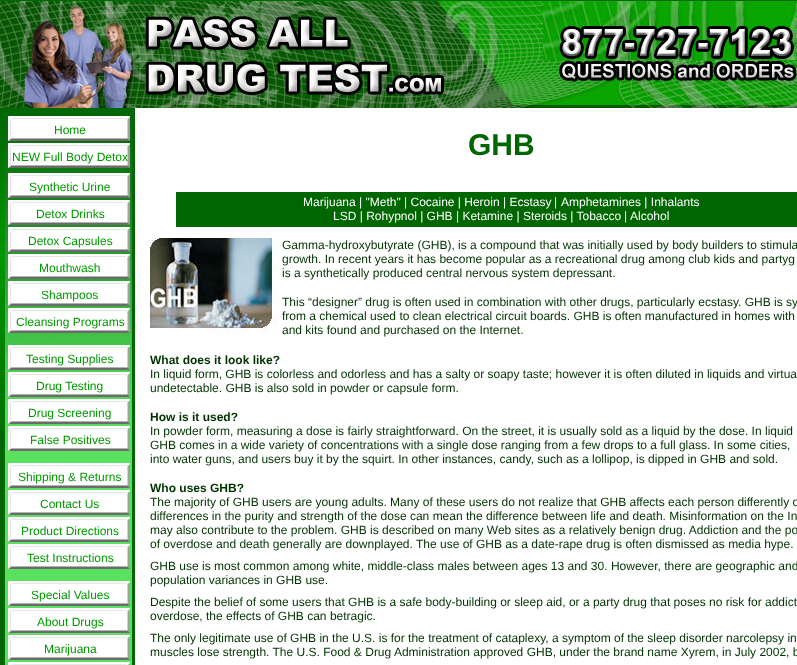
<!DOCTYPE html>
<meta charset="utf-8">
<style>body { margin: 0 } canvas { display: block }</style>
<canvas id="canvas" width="797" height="665"></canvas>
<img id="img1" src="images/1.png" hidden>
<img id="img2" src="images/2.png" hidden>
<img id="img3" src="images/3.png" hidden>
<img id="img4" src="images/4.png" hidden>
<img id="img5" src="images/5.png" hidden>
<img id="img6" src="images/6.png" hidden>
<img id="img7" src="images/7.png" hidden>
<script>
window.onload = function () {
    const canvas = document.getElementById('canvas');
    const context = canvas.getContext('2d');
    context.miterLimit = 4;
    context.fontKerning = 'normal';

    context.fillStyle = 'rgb(255, 255, 255)';
    context.fillRect(0, 0, 797, 665);
    context.drawImage(document.getElementById('img1'), 0, 0, 797, 1);
    context.drawImage(document.getElementById('img2'), 0, 1, 797, 107);
    context.drawImage(document.getElementById('img3'), 0, 108, 140, 557);
    context.drawImage(document.getElementById('img4'), 0, 108, 136, 328);
    context.drawImage(document.getElementById('img5'), 8, 116, 122, 25);
    context.drawImage(document.getElementById('img5'), 8, 143, 122, 25);
    context.drawImage(document.getElementById('img5'), 8, 173, 122, 25);
    context.drawImage(document.getElementById('img5'), 8, 200, 122, 25);
    context.drawImage(document.getElementById('img5'), 8, 227, 122, 25);
    context.drawImage(document.getElementById('img5'), 8, 254, 122, 25);
    context.drawImage(document.getElementById('img5'), 8, 281, 122, 25);
    context.drawImage(document.getElementById('img5'), 8, 308, 122, 25);
    context.drawImage(document.getElementById('img5'), 8, 345, 122, 25);
    context.drawImage(document.getElementById('img5'), 8, 372, 122, 25);
    context.drawImage(document.getElementById('img5'), 8, 399, 122, 25);
    context.drawImage(document.getElementById('img5'), 8, 426, 122, 25);
    context.drawImage(document.getElementById('img5'), 8, 463, 122, 25);
    context.drawImage(document.getElementById('img5'), 8, 490, 122, 25);
    context.drawImage(document.getElementById('img5'), 8, 517, 122, 25);
    context.drawImage(document.getElementById('img5'), 8, 544, 122, 25);
    context.drawImage(document.getElementById('img5'), 8, 581, 122, 25);
    context.drawImage(document.getElementById('img5'), 8, 608, 122, 25);
    context.drawImage(document.getElementById('img5'), 8, 635, 122, 25);
    context.drawImage(document.getElementById('img6'), 8, 662, 122, 3);
    context.fillStyle = 'rgb(0, 102, 0)';
    context.fillRect(176, 192, 621, 35);
    context.drawImage(document.getElementById('img7'), 150, 238, 128, 96);
    context.font = '12px Liberation Sans';
    context.fillStyle = 'rgb(0, 153, 0)';
    context.fillText('Home', 54, 134);
    context.fillText('NEW Full Body Detox', 12, 161);
    context.fillText('Synthetic Urine', 29, 191);
    context.fillText('Detox Drinks', 36, 218);
    context.fillText('Detox Capsules', 28, 245);
    context.fillText('Mouthwash', 39, 272);
    context.fillText('Shampoos', 41, 299);
    context.fillText('Cleansing Programs', 16, 326);
    context.fillText('Testing Supplies', 26, 363);
    context.fillText('Drug Testing', 36, 390);
    context.fillText('Drug Screening', 28, 417);
    context.fillText('False Positives', 30, 444);
    context.fillText('Shipping & Returns', 18, 481);
    context.fillText('Contact Us', 40, 508);
    context.fillText('Product Directions', 21, 535);
    context.fillText('Test Instructions', 27, 562);
    context.fillText('Special Values', 31, 599);
    context.fillText('About Drugs', 37, 626);
    context.fillText('Marijuana', 44, 653);
    context.font = 'bold 30px Liberation Sans';
    context.fillStyle = 'rgb(0, 102, 0)';
    context.fillText('GHB', 468, 155);
    context.font = '12px Liberation Sans';
    context.fillStyle = 'rgb(255, 255, 255)';
    context.fillText('Marijuana | "Meth" | Cocaine | Heroin | Ecstasy', 303, 206);
    context.fillText('|', 554, 206);
    context.fillText('Amphetamines | Inhalants', 561, 206);
    context.fillText('LSD | Rohypnol | GHB | Ketamine | Steroids | Tobacco', 333, 220);
    context.fillText('|', 624, 220);
    context.fillText('Alcohol', 630, 220);
    context.fillStyle = 'rgb(0, 51, 0)';
    context.fillText('Gamma-hydroxybutyrate (GHB), is a compound that was initially used by body builders to stimula', 282, 249);
    context.fillText('growth. In recent years it has become popular as a recreational drug among club kids and partyg', 282, 263);
    context.fillText('is a synthetically produced central nervous system depressant.', 282, 277);
    context.fillText('This “designer” drug is often used in combination with other drugs, particularly ecstasy. GHB is sy', 282, 306);
    context.fillText('from a chemical used to clean electrical circuit boards. GHB is often manufactured in homes with', 282, 320);
    context.fillText('and kits found and purchased on the Internet.', 282, 334);
    context.font = 'bold 12px Liberation Sans';
    context.fillText('What does it look like?', 150, 364);
    context.font = '12px Liberation Sans';
    context.fillText('In liquid form, GHB is colorless and odorless and has a salty or soapy taste; however it is often diluted in liquids and virtua', 150, 378);
    context.fillText('undetectable. GHB is also sold in powder or capsule form.', 150, 392);
    context.font = 'bold 12px Liberation Sans';
    context.fillText('How is it used?', 150, 421);
    context.font = '12px Liberation Sans';
    context.fillText('In powder form, measuring a dose is fairly straightforward. On the street, it is usually sold as a liquid by the dose. In liquid', 150, 435);
    context.fillText('GHB comes in a wide variety of concentrations with a single dose ranging from a few drops to a full glass. In some cities,', 150, 449);
    context.fillText('into water guns, and users buy it by the squirt. In other instances, candy, such as a lollipop, is dipped in GHB and sold.', 150, 463);
    context.font = 'bold 12px Liberation Sans';
    context.fillText('Who uses GHB?', 150, 492);
    context.font = '12px Liberation Sans';
    context.fillText('The majority of GHB users are young adults. Many of these users do not realize that GHB affects each person differently o', 150, 506);
    context.fillText('differences in the purity and strength of the dose can mean the difference between life and death. Misinformation on the In', 150, 520);
    context.fillText('may also contribute to the problem. GHB is described on many Web sites as a relatively benign drug. Addiction and the po', 150, 534);
    context.fillText('of overdose and death generally are downplayed. The use of GHB as a date-rape drug is often dismissed as media hype.', 150, 548);
    context.fillText('GHB use is most common among white, middle-class males between ages 13 and 30. However, there are geographic and', 150, 570);
    context.fillText('population variances in GHB use.', 150, 584);
    context.fillText('Despite the belief of some users that GHB is a safe body-building or sleep aid, or a party drug that poses no risk for addict', 150, 606);
    context.fillText('overdose, the effects of GHB can betragic.', 150, 620);
    context.fillText('The only legitimate use of GHB in the U.S. is for the treatment of cataplexy, a symptom of the sleep disorder narcolepsy in', 150, 642);
    context.fillText('muscles lose strength. The U.S. Food & Drug Administration approved GHB, under the brand name Xyrem, in July 2002, b', 150, 656);
};
</script>
